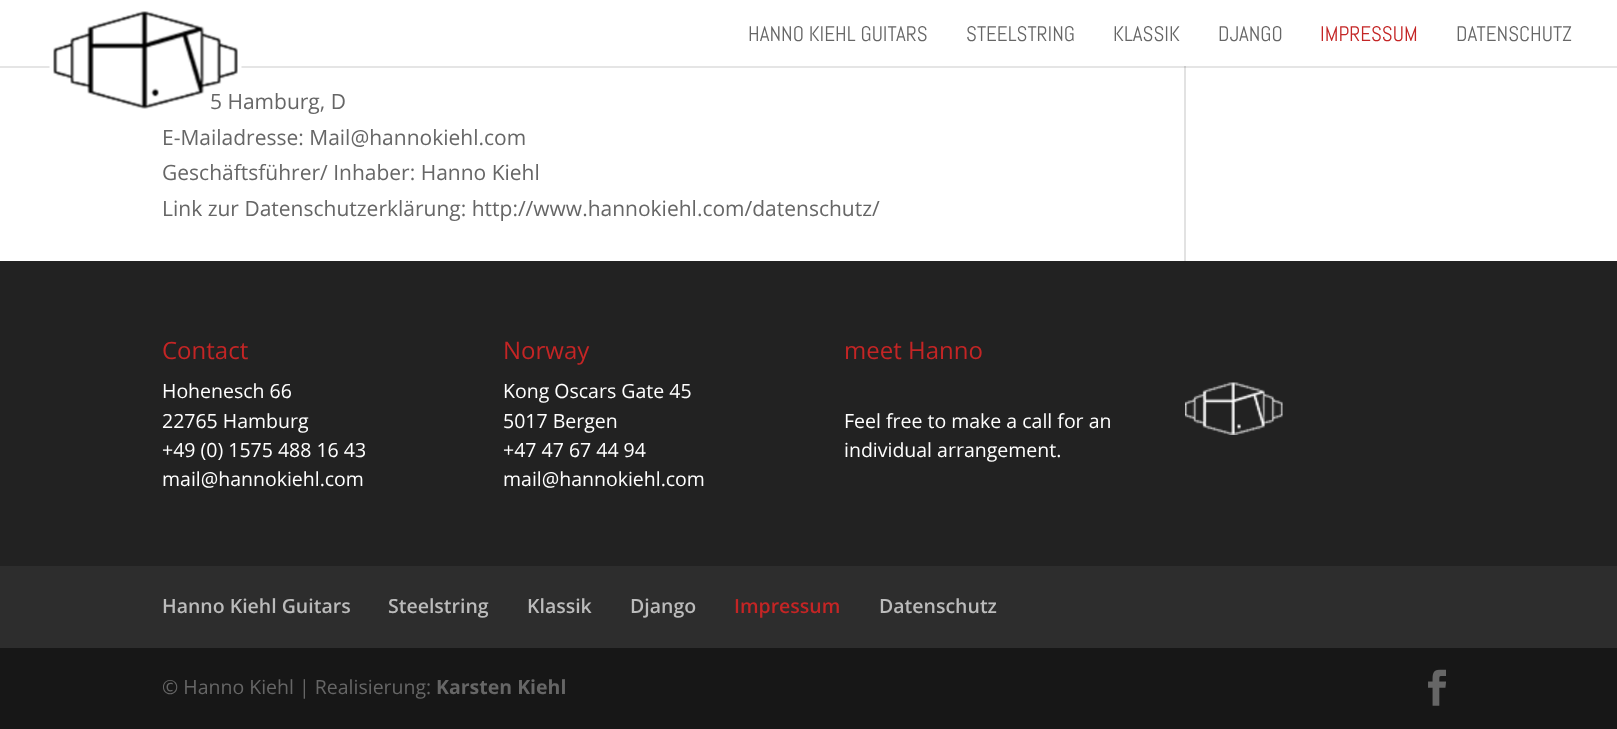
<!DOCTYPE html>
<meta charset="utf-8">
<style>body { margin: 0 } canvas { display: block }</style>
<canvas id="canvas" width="1617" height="729"></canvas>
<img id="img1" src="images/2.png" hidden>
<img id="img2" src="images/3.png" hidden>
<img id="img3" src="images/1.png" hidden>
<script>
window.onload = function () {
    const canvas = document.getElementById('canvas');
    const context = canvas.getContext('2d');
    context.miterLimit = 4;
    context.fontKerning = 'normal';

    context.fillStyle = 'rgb(255, 255, 255)';
    context.fillRect(0, 0, 1617, 729);
    context.fillStyle = 'rgb(226, 226, 226)';
    context.fillRect(1184, 66, 2, 195);
    context.fillStyle = 'rgba(0, 0, 0, 0.1)';
    context.fillRect(0, 66, 1617, 2);
    context.fillStyle = 'rgb(34, 34, 34)';
    context.fillRect(0, 261, 1617, 305);
    context.drawImage(document.getElementById('img1'), 1185, 382, 98, 53);
    context.fillStyle = 'rgb(45, 45, 45)';
    context.fillRect(0, 566, 1617, 82);
    context.fillStyle = 'rgb(23, 23, 23)';
    context.fillRect(0, 648, 1617, 81);
    context.drawImage(document.getElementById('img2'), 1428, 669, 18, 37);
    context.font = '21px Abel';
    context.fillStyle = 'rgb(102, 102, 102)';
    context.fillText('HANNO KIEHL GUITARS', 748, 41);
    context.fillText('STEELSTRING', 966, 41);
    context.fillText('KLASSIK', 1113, 41);
    context.fillText('DJANGO', 1218, 41);
    context.fillStyle = 'rgb(196, 37, 37)';
    context.fillText('IMPRESSUM', 1320, 41);
    context.fillStyle = 'rgb(102, 102, 102)';
    context.fillText('DATENSCHUTZ', 1456, 41);
    context.font = '21px Open Sans';
    context.fillText('5 Hamburg, D', 210, 109);
    context.drawImage(document.getElementById('img3'), 49, 11, 193, 98);
    context.fillText('E-Mailadresse: Mail@hannokiehl.com', 162, 145);
    context.fillText('Geschäftsführer/ Inhaber: Hanno Kiehl', 162, 180);
    context.fillText('Link zur Datenschutzerklärung: http://www.hannokiehl.com/datenschutz/', 162, 216);
    context.font = '24px Open Sans';
    context.fillStyle = 'rgb(196, 37, 37)';
    context.fillText('Contact', 162, 359);
    context.font = '19.5px Open Sans';
    context.fillStyle = 'rgb(255, 255, 255)';
    context.fillText('Hohenesch 66', 162, 398);
    context.fillText('22765 Hamburg', 162, 428);
    context.fillText('+49 (0) 1575 488 16 43', 162, 457);
    context.fillText('mail@hannokiehl.com', 162, 486);
    context.font = '24px Open Sans';
    context.fillStyle = 'rgb(196, 37, 37)';
    context.fillText('Norway', 503, 359);
    context.font = '19.5px Open Sans';
    context.fillStyle = 'rgb(255, 255, 255)';
    context.fillText('Kong Oscars Gate 45', 503, 398);
    context.fillText('5017 Bergen', 503, 428);
    context.fillText('+47 47 67 44 94', 503, 457);
    context.fillText('mail@hannokiehl.com', 503, 486);
    context.font = '24px Open Sans';
    context.fillStyle = 'rgb(196, 37, 37)';
    context.fillText('meet Hanno', 844, 359);
    context.font = '19.5px Open Sans';
    context.fillStyle = 'rgb(255, 255, 255)';
    context.fillText('Feel free to make a call for an', 844, 428);
    context.fillText('individual arrangement.', 844, 457);
    context.font = '600 19.5px Open Sans';
    context.fillStyle = 'rgb(187, 187, 187)';
    context.fillText('Hanno Kiehl Guitars', 162, 613);
    context.fillText('Steelstring', 388, 613);
    context.fillText('Klassik', 527, 613);
    context.fillText('Django', 630, 613);
    context.fillStyle = 'rgb(196, 37, 37)';
    context.fillText('Impressum', 734, 613);
    context.fillStyle = 'rgb(187, 187, 187)';
    context.fillText('Datenschutz', 879, 613);
    context.font = '19.5px Open Sans';
    context.fillStyle = 'rgb(102, 102, 102)';
    context.fillText('© Hanno Kiehl | Realisierung:', 162, 694);
    context.font = 'bold 19.5px Open Sans';
    context.fillText('Karsten Kiehl', 436, 694);
};
</script>
